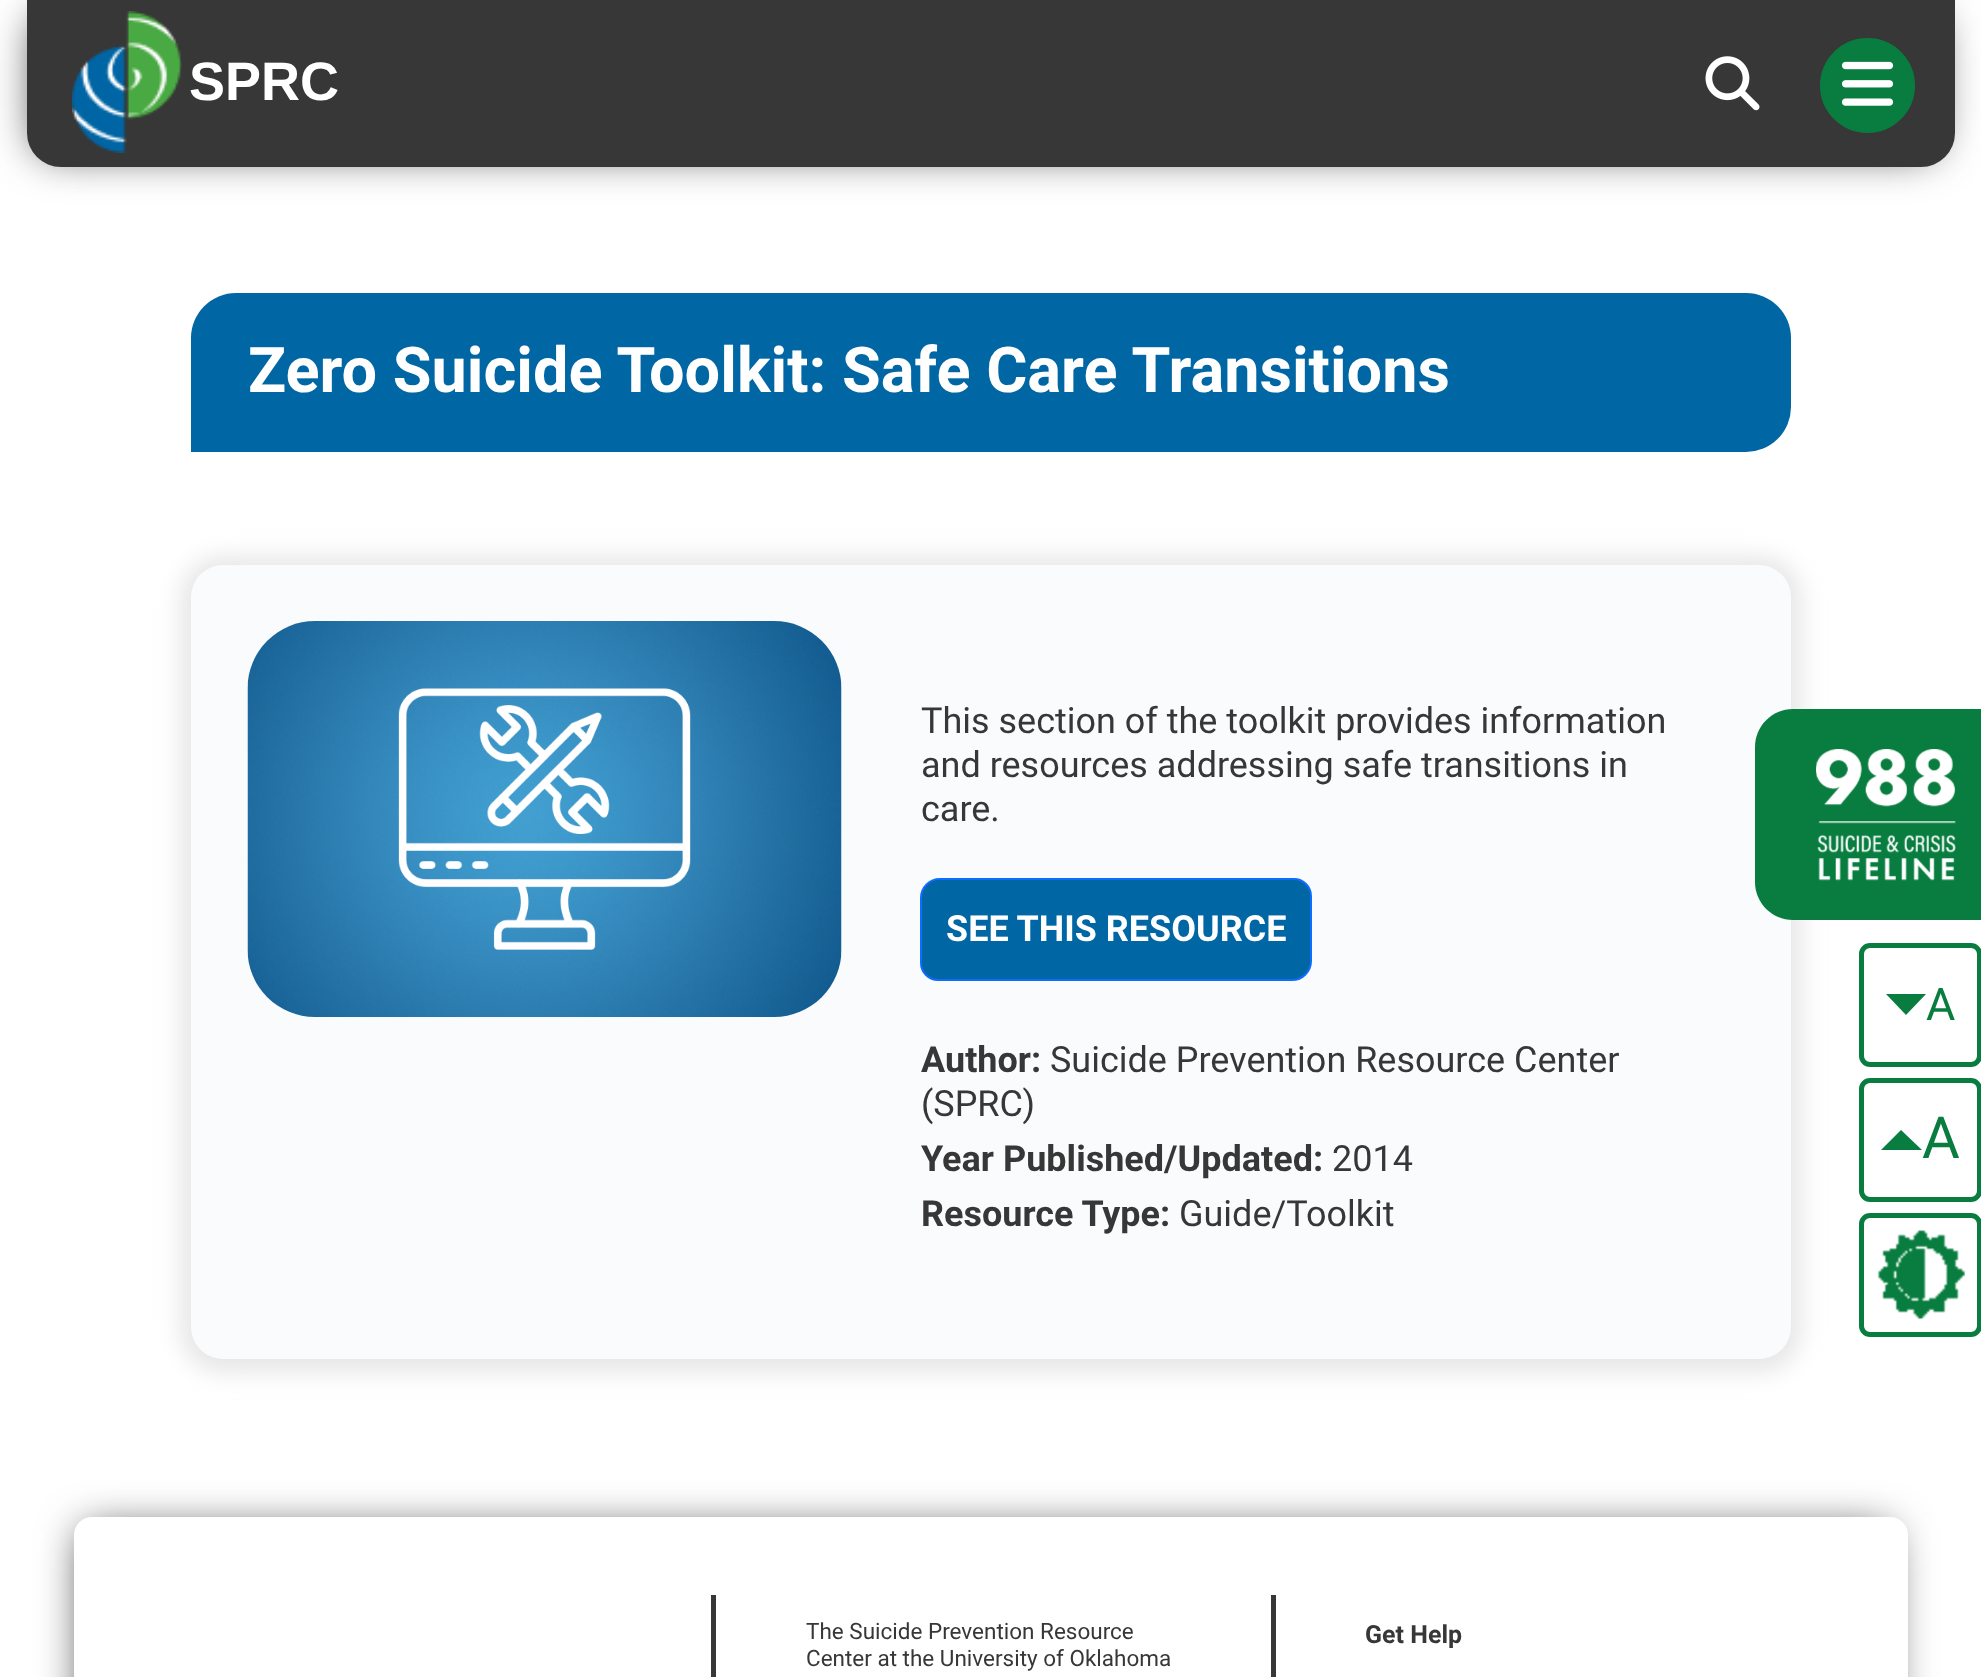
<!DOCTYPE html>
<meta charset="utf-8">
<style>body { margin: 0 } canvas { display: block }</style>
<canvas id="canvas" width="1981" height="1677"></canvas>
<img id="img1" src="images/1.png" hidden>
<img id="img2" src="images/2.png" hidden>
<img id="img3" src="images/3.png" hidden>
<img id="img4" src="images/4.png" hidden>
<img id="img5" src="images/5.png" hidden>
<img id="img6" src="images/6.png" hidden>
<script>
window.onload = function () {
    const canvas = document.getElementById('canvas');
    const context = canvas.getContext('2d');
    context.miterLimit = 4;
    context.fontKerning = 'normal';

    context.fillStyle = 'rgb(255, 255, 255)';
    context.fillRect(0, 0, 1981, 1677);
    context.fillStyle = 'rgb(55, 55, 55)';
    context.filter = 'blur(21.5px)';
    context.beginPath();
    context.roundRect(36, 14, 1901, 139, 20);
    context.fill();
    context.filter = 'none';
    context.beginPath();
    context.roundRect(27, 0, 1928, 167, [0, 0, 34, 34]);
    context.fill();
    context.drawImage(document.getElementById('img1'), 72, 11, 110, 142);
    context.drawImage(document.getElementById('img2'), 1705, 56, 55, 55);
    context.fillStyle = 'rgb(8, 125, 63)';
    context.beginPath();
    context.arc(1867.5, 85.5, 46.5, 0, 2 * Math.PI);
    context.fill();
    context.strokeStyle = 'rgb(8, 125, 63)';
    context.lineWidth = 2;
    context.stroke();
    context.drawImage(document.getElementById('img3'), 1841, 61, 53, 45);
    context.fillStyle = 'rgb(0, 102, 164)';
    context.beginPath();
    context.roundRect(191, 293, 1600, 159, [45, 45, 45, 0]);
    context.fill();
    context.fillStyle = 'rgb(231, 231, 231)';
    context.filter = 'blur(11px)';
    context.beginPath();
    context.roundRect(180, 556, 1622, 817, 43);
    context.fill();
    context.filter = 'none';
    context.fillStyle = 'rgb(249, 251, 252)';
    context.beginPath();
    context.roundRect(191, 565, 1600, 794, 32);
    context.fill();
    context.drawImage(document.getElementById('img4'), 247, 621, 595, 396);
    context.fillStyle = 'rgb(0, 102, 164)';
    context.beginPath();
    context.roundRect(921, 879, 390, 101, [19, 17, 19, 17]);
    context.fill();
    context.strokeStyle = 'rgb(13, 110, 253)';
    context.stroke();
    context.fillStyle = 'rgb(8, 125, 63)';
    context.beginPath();
    context.moveTo(1793, 709);
    context.lineTo(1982, 709);
    context.lineTo(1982, 920);
    context.lineTo(1793, 920);
    context.bezierCurveTo(1772, 920, 1755, 903, 1755, 882);
    context.lineTo(1755, 747);
    context.bezierCurveTo(1755, 726, 1772, 709, 1793, 709);
    context.closePath();
    context.fill();
    context.drawImage(document.getElementById('img5'), 1816, 749, 140, 132);
    context.beginPath();
    context.roundRect(1861.5, 945.5, 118, 119, 8.5);
    context.strokeStyle = 'rgb(8, 125, 63)';
    context.lineWidth = 5;
    context.stroke();
    context.beginPath();
    context.moveTo(1886, 994);
    context.lineTo(1926, 994);
    context.lineTo(1906, 1015);
    context.closePath();
    context.fill();
    context.beginPath();
    context.roundRect(1861.5, 1080.5, 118, 119, 8.5);
    context.stroke();
    context.beginPath();
    context.moveTo(1922, 1150);
    context.lineTo(1881, 1150);
    context.lineTo(1901, 1130);
    context.closePath();
    context.fill();
    context.beginPath();
    context.roundRect(1861.5, 1215.5, 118, 119, 8.5);
    context.stroke();
    context.drawImage(document.getElementById('img6'), 1877, 1230, 88, 90);
    context.fillStyle = 'rgb(55, 55, 55)';
    context.filter = 'blur(21.5px)';
    context.beginPath();
    context.roundRect(83, 1530, 1807, 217, 5);
    context.fill();
    context.filter = 'none';
    context.fillStyle = 'rgb(255, 255, 255)';
    context.beginPath();
    context.roundRect(74, 1517, 1834, 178, 18);
    context.fill();
    context.fillStyle = 'rgb(55, 55, 55)';
    context.fillRect(711, 1595, 5, 82);
    context.fillRect(1271, 1595, 5, 82);
    context.font = 'bold 54px Liberation Sans';
    context.fillStyle = 'rgb(255, 255, 255)';
    context.fillText('SPRC', 189, 100);
    context.font = 'bold 63px Roboto';
    context.fillText('Zero Suicide Toolkit: Safe Care Transitions', 248, 392);
    context.font = '36px Roboto';
    context.fillStyle = 'rgb(55, 55, 55)';
    context.fillText('This section of the toolkit provides information', 921, 733);
    context.fillText('and resources addressing safe transitions in', 921, 777);
    context.fillText('care.', 921, 821);
    context.font = 'bold 36px Roboto';
    context.fillStyle = 'rgb(255, 255, 255)';
    context.fillText('SEE THIS RESOURCE', 946, 941);
    context.fillStyle = 'rgb(55, 55, 55)';
    context.fillText('Author:', 921, 1072);
    context.font = '36px Roboto';
    context.fillText('Suicide Prevention Resource Center', 1050, 1072);
    context.fillText('(SPRC)', 921, 1116);
    context.font = 'bold 36px Roboto';
    context.fillText('Year Published/Updated:', 921, 1171);
    context.font = '36px Roboto';
    context.fillText('2014', 1332, 1171);
    context.font = 'bold 36px Roboto';
    context.fillText('Resource Type:', 921, 1226);
    context.font = '36px Roboto';
    context.fillText('Guide/Toolkit', 1179, 1226);
    context.font = '45px Roboto';
    context.fillStyle = 'rgb(8, 125, 63)';
    context.fillText('A', 1926, 1020);
    context.font = '58px Roboto';
    context.fillText('A', 1922, 1158);
    context.font = '22.5px Roboto';
    context.fillStyle = 'rgb(55, 55, 55)';
    context.fillText('The Suicide Prevention Resource', 806, 1639);
    context.fillText('Center at the University of Oklahoma', 806, 1666);
    context.font = 'bold 25px Roboto';
    context.fillText('Get Help', 1365, 1643);
};
</script>
